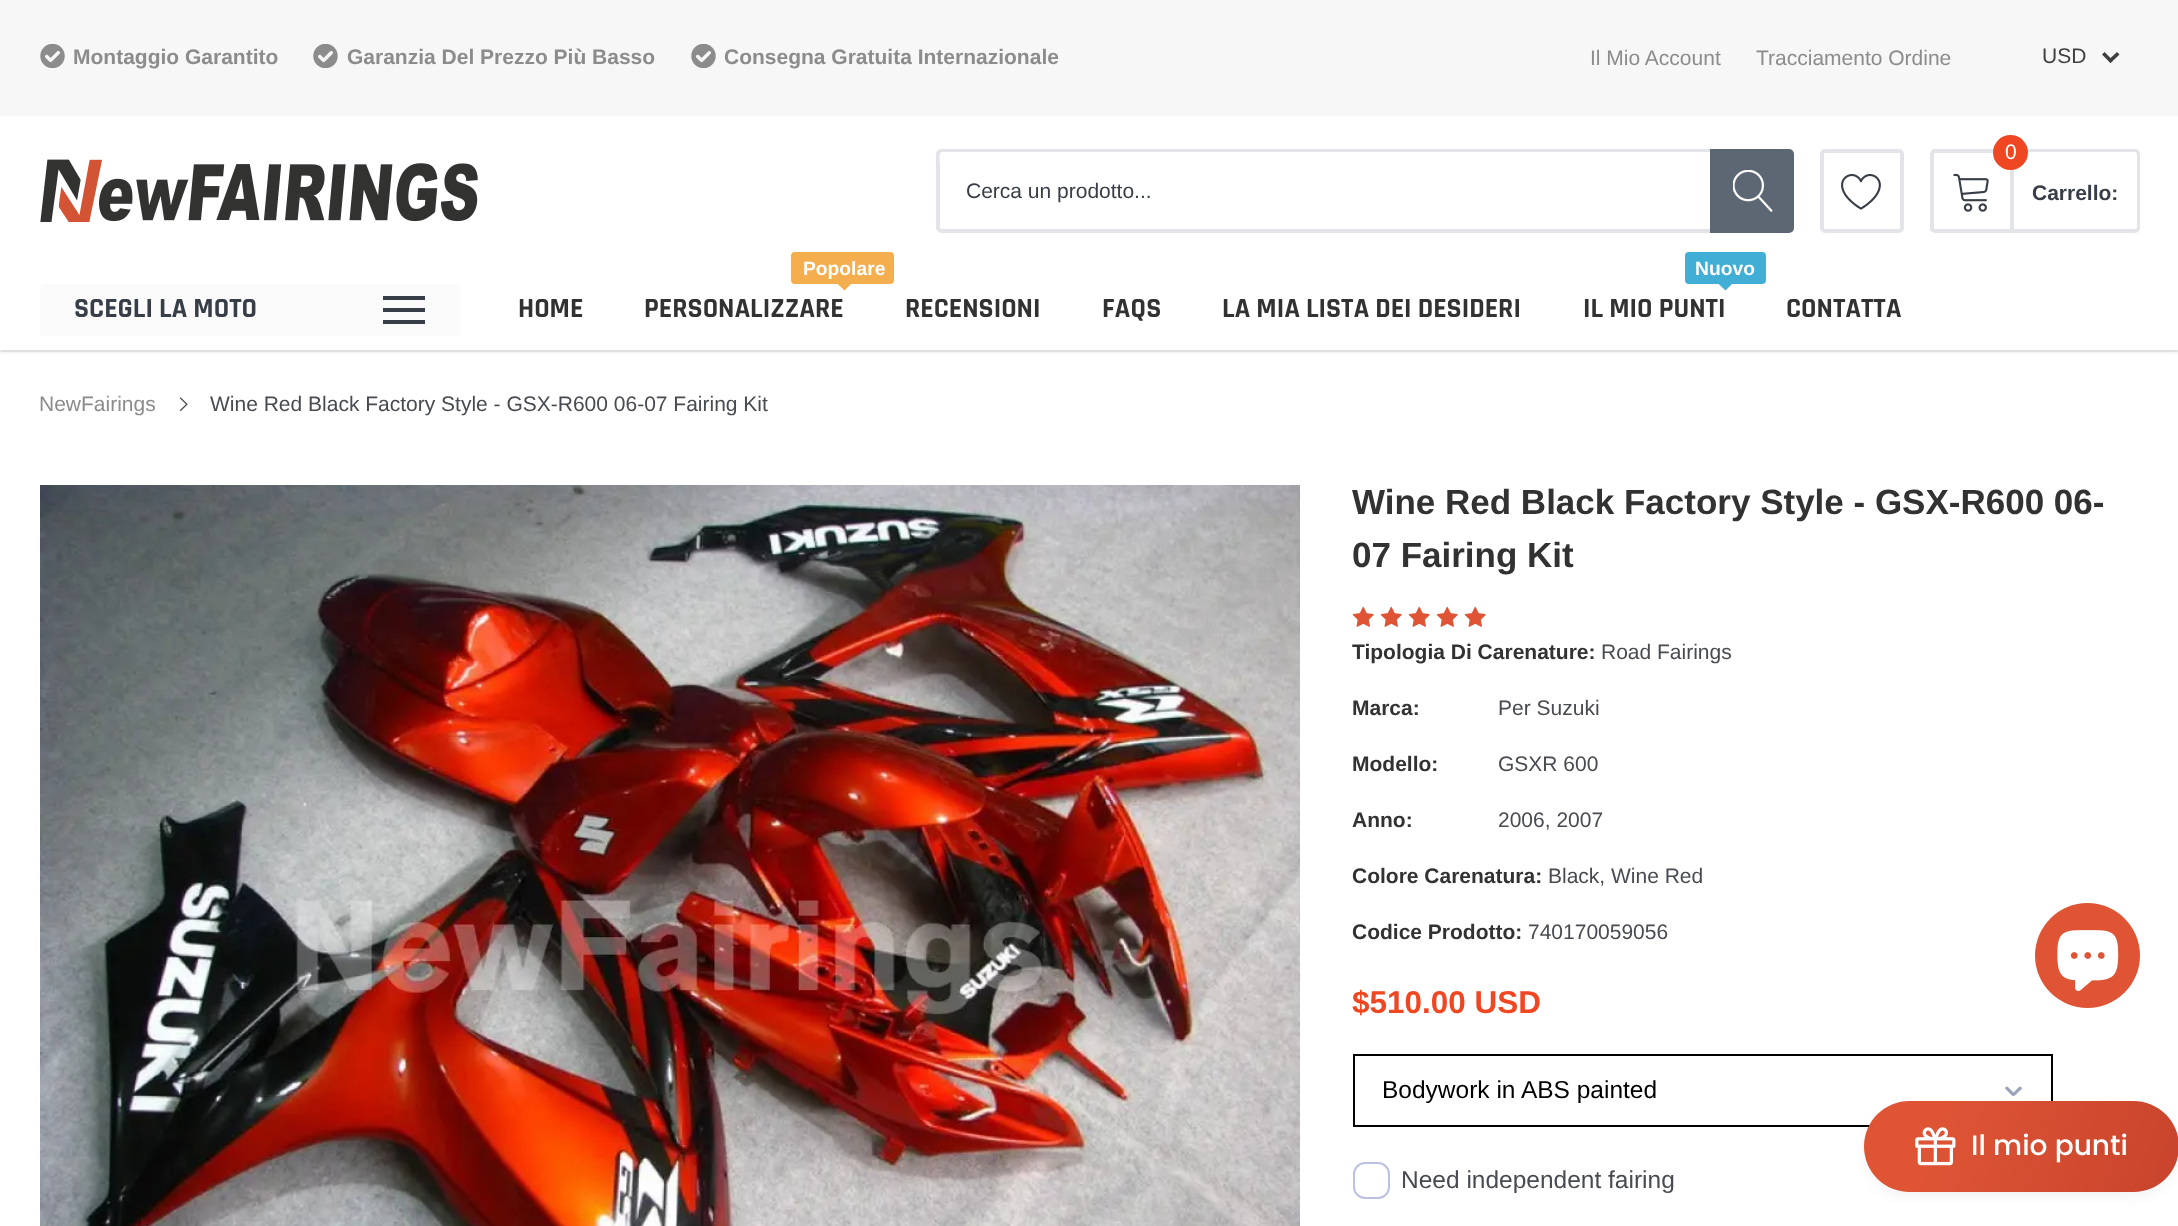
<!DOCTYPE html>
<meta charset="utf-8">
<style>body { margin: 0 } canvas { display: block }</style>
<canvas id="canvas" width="2178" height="1226"></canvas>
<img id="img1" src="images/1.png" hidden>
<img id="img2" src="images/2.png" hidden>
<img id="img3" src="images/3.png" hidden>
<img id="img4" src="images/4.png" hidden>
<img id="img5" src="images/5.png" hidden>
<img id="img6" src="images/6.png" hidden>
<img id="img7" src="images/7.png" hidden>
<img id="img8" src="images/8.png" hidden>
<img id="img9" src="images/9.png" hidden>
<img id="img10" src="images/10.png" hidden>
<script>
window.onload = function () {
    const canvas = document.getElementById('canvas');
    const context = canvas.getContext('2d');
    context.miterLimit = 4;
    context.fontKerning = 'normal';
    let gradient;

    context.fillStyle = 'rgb(255, 255, 255)';
    context.fillRect(0, 0, 2178, 1226);
    context.save();
    context.beginPath();
    context.rect(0, 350, 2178, 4);
    context.clip();
    context.fillStyle = 'rgba(0, 0, 0, 0.1)';
    context.filter = 'blur(2px)';
    context.beginPath();
    context.rect(0, 2, 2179, 350);
    context.fill();
    context.filter = 'none';
    context.restore();
    context.strokeStyle = 'rgba(0, 0, 0, 0.06)';
    context.lineWidth = 2;
    context.strokeRect(-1, -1, 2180, 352);
    context.fillStyle = 'rgb(247, 247, 247)';
    context.fillRect(0, 0, 2178, 116);
    context.drawImage(document.getElementById('img1'), 40, 44, 25, 24);
    context.drawImage(document.getElementById('img1'), 313, 44, 25, 24);
    context.drawImage(document.getElementById('img1'), 691, 44, 25, 24);
    context.fillStyle = 'rgb(64, 63, 63)';
    context.beginPath();
    context.moveTo(2117, 52);
    context.lineTo(2119.5, 54.5);
    context.lineTo(2110.5, 63);
    context.lineTo(2108, 60.5);
    context.closePath();
    context.fill();
    context.beginPath();
    context.moveTo(2104.5, 52);
    context.lineTo(2113, 60.5);
    context.lineTo(2110.5, 63);
    context.lineTo(2102, 54.5);
    context.closePath();
    context.fill();
    context.drawImage(document.getElementById('img2'), 40, 159, 438, 63);
    context.fillStyle = 'rgb(226, 228, 232)';
    context.beginPath();
    context.moveTo(942, 149);
    context.lineTo(1710, 149);
    context.lineTo(1710, 233);
    context.lineTo(942, 233);
    context.bezierCurveTo(939, 233, 936, 230, 936, 228);
    context.lineTo(936, 154);
    context.bezierCurveTo(936, 151, 939, 149, 942, 149);
    context.closePath();
    context.moveTo(942, 152);
    context.lineTo(1710, 152);
    context.lineTo(1710, 229);
    context.lineTo(941, 229);
    context.lineTo(940, 228);
    context.lineTo(940, 166);
    context.bezierCurveTo(940, 163, 938, 152, 942, 152);
    context.closePath();
    context.fill('evenodd');
    context.fillStyle = 'rgb(93, 102, 115)';
    context.beginPath();
    context.roundRect(1711, 150, 82, 82, [0, 4, 4, 0]);
    context.fill();
    context.strokeStyle = 'rgb(93, 102, 115)';
    context.stroke();
    context.drawImage(document.getElementById('img3'), 1733, 170, 40, 42);
    context.beginPath();
    context.roundRect(1822, 151, 80, 80, 3);
    context.strokeStyle = 'rgb(226, 228, 232)';
    context.lineWidth = 4;
    context.stroke();
    context.drawImage(document.getElementById('img4'), 1841, 174, 40, 36);
    context.beginPath();
    context.roundRect(1932, 151, 80, 80, [3, 0, 0, 3]);
    context.stroke();
    context.fillStyle = 'rgb(226, 228, 232)';
    context.beginPath();
    context.moveTo(2014, 149);
    context.lineTo(2135, 149);
    context.bezierCurveTo(2138, 149, 2140, 151, 2140, 154);
    context.lineTo(2140, 228);
    context.bezierCurveTo(2140, 230, 2138, 233, 2135, 233);
    context.lineTo(2014, 233);
    context.closePath();
    context.moveTo(2014, 152);
    context.lineTo(2135, 152);
    context.bezierCurveTo(2136, 152, 2137, 153, 2137, 154);
    context.lineTo(2137, 228);
    context.bezierCurveTo(2137, 228, 2136, 229, 2135, 229);
    context.lineTo(2014, 229);
    context.closePath();
    context.fill('evenodd');
    context.fillStyle = 'rgb(240, 71, 35)';
    context.beginPath();
    context.arc(2010.5, 152.5, 17.5, 0, 2 * Math.PI);
    context.fill();
    context.drawImage(document.getElementById('img5'), 1953, 173, 36, 39);
    context.fillStyle = 'rgb(250, 250, 250)';
    context.beginPath();
    context.roundRect(40, 284, 420, 52, [5, 5, 0, 0]);
    context.fill();
    context.fillStyle = 'rgb(56, 62, 71)';
    context.fillRect(383, 308, 42, 4);
    context.fillRect(383, 296, 42, 4);
    context.fillRect(383, 320, 42, 4);
    context.fillStyle = 'rgb(244, 174, 77)';
    context.beginPath();
    context.roundRect(792, 253, 101, 30, 3);
    context.fill();
    context.strokeStyle = 'rgb(244, 174, 77)';
    context.lineWidth = 2;
    context.stroke();
    context.beginPath();
    context.moveTo(835.5, 282);
    context.lineTo(853, 282);
    context.lineTo(844.5, 290.5);
    context.closePath();
    context.fill();
    context.fillStyle = 'rgb(65, 174, 214)';
    context.beginPath();
    context.roundRect(1686, 253, 79, 30, 3);
    context.fill();
    context.strokeStyle = 'rgb(65, 174, 214)';
    context.stroke();
    context.beginPath();
    context.moveTo(1716.5, 282);
    context.lineTo(1734, 282);
    context.lineTo(1725.5, 290.5);
    context.closePath();
    context.fill();
    context.drawImage(document.getElementById('img6'), 179, 397, 9, 14);
    context.drawImage(document.getElementById('img7'), 40, 485, 1260, 741);
    context.drawImage(document.getElementById('img8'), 1352, 606, 22, 21);
    context.drawImage(document.getElementById('img8'), 1380, 606, 22, 21);
    context.drawImage(document.getElementById('img8'), 1408, 606, 22, 21);
    context.drawImage(document.getElementById('img8'), 1436, 606, 22, 21);
    context.drawImage(document.getElementById('img8'), 1464, 606, 22, 21);
    context.strokeStyle = 'rgb(0, 0, 0)';
    context.strokeRect(1354, 1055, 698, 71);
    context.fillStyle = 'rgb(153, 163, 186)';
    context.beginPath();
    context.moveTo(2008, 1087);
    context.lineTo(2014.5, 1093.5);
    context.bezierCurveTo(2015, 1094.5, 2015, 1095, 2014, 1095.5);
    context.bezierCurveTo(2013.5, 1096, 2012.5, 1096, 2012, 1095.5);
    context.lineTo(2005.5, 1089);
    context.bezierCurveTo(2005, 1088.5, 2005, 1087.5, 2005.5, 1087);
    context.bezierCurveTo(2006.5, 1086.5, 2007.5, 1086.5, 2008, 1087);
    context.closePath();
    context.fill();
    context.beginPath();
    context.moveTo(2012.5, 1093.5);
    context.lineTo(2019, 1087);
    context.bezierCurveTo(2020, 1086.5, 2022, 1087, 2022, 1088.5);
    context.bezierCurveTo(2021.5, 1089.5, 2019, 1091.5, 2018, 1092);
    context.bezierCurveTo(2017, 1093.5, 2014.5, 1097, 2012.5, 1095.5);
    context.lineTo(2012, 1094.5);
    context.closePath();
    context.fill();
    context.beginPath();
    context.roundRect(1354, 1163, 35, 35, 11);
    context.strokeStyle = 'rgb(187, 193, 225)';
    context.stroke();
    context.fillStyle = 'rgb(222, 84, 52)';
    context.beginPath();
    context.arc(2087.5, 955.5, 52.5, 0, 2 * Math.PI);
    context.fill();
    context.drawImage(document.getElementById('img9'), 2057, 930, 62, 61);
    context.fillStyle = 'rgba(68, 68, 68, 0.08)';
    context.filter = 'blur(7px)';
    context.beginPath();
    context.roundRect(1867, 1111, 308, 84, 42);
    context.fill();
    context.filter = 'none';
    gradient = context.createLinearGradient(1867, 1092, 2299, 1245);
    gradient.addColorStop(0.17, 'rgb(222, 84, 53)');
    gradient.addColorStop(1, 'rgb(189, 59, 40)');
    context.fillStyle = gradient;
    context.beginPath();
    context.roundRect(1864, 1101, 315, 91, 45.5);
    context.fill();
    context.drawImage(document.getElementById('img10'), 1915, 1127, 41, 39);
    context.font = 'bold 21px Arimo';
    context.fillStyle = 'rgb(140, 140, 140)';
    context.fillText('Montaggio Garantito', 73, 64);
    context.fillText('Garanzia Del Prezzo Più Basso', 347, 64);
    context.fillText('Consegna Gratuita Internazionale', 724, 64);
    context.font = '21px Arimo';
    context.fillText('Il Mio Account', 1590, 65);
    context.fillText('Tracciamento Ordine', 1756, 65);
    context.font = '21px Liberation Sans';
    context.fillStyle = 'rgb(64, 63, 63)';
    context.fillText('USD', 2042, 63);
    context.font = '21px Arimo';
    context.fillStyle = 'rgb(56, 62, 71)';
    context.fillText('Cerca un prodotto...', 966, 198);
    context.fillStyle = 'rgb(255, 255, 255)';
    context.fillText('0', 2005, 159);
    context.font = 'bold 21px Arimo';
    context.fillStyle = 'rgb(56, 62, 71)';
    context.fillText('Carrello:', 2032, 200);
    context.font = 'bold 28px Rajdhani';
    context.fillText('SCEGLI LA MOTO', 74, 317);
    context.fillStyle = 'rgb(50, 50, 50)';
    context.fillText('HOME', 518, 317);
    context.font = 'bold 19.25px Arimo';
    context.fillStyle = 'rgb(255, 255, 255)';
    context.fillText('Popolare', 803, 275);
    context.font = 'bold 28px Rajdhani';
    context.fillStyle = 'rgb(50, 50, 50)';
    context.fillText('PERSONALIZZARE', 644, 317);
    context.fillText('RECENSIONI', 905, 317);
    context.fillText('FAQS', 1102, 317);
    context.fillText('LA MIA LISTA DEI DESIDERI', 1222, 317);
    context.font = 'bold 19.25px Arimo';
    context.fillStyle = 'rgb(255, 255, 255)';
    context.fillText('Nuovo', 1695, 275);
    context.font = 'bold 28px Rajdhani';
    context.fillStyle = 'rgb(50, 50, 50)';
    context.fillText('IL MIO PUNTI', 1583, 317);
    context.fillText('CONTATTA', 1786, 317);
    context.font = '21px Arimo';
    context.fillStyle = 'rgb(140, 140, 140)';
    context.fillText('NewFairings', 39, 411);
    context.fillStyle = 'rgb(72, 75, 81)';
    context.fillText('Wine Red Black Factory Style - GSX-R600 06-07 Fairing Kit', 210, 411);
    context.font = 'bold 35px Arimo';
    context.fillStyle = 'rgb(50, 50, 50)';
    context.fillText('Wine Red Black Factory Style - GSX-R600 06-', 1352, 514);
    context.fillText('07 Fairing Kit', 1352, 567);
    context.font = 'bold 21px Arimo';
    context.fillText('Tipologia Di Carenature:', 1352, 659);
    context.font = '21px Arimo';
    context.fillStyle = 'rgb(72, 75, 81)';
    context.fillText('Road Fairings', 1601, 659);
    context.font = 'bold 21px Arimo';
    context.fillStyle = 'rgb(50, 50, 50)';
    context.fillText('Marca:', 1352, 715);
    context.font = '21px Arimo';
    context.fillStyle = 'rgb(72, 75, 81)';
    context.fillText('Per Suzuki', 1498, 715);
    context.font = 'bold 21px Arimo';
    context.fillStyle = 'rgb(50, 50, 50)';
    context.fillText('Modello:', 1352, 771);
    context.font = '21px Arimo';
    context.fillStyle = 'rgb(72, 75, 81)';
    context.fillText('GSXR 600', 1498, 771);
    context.font = 'bold 21px Arimo';
    context.fillStyle = 'rgb(50, 50, 50)';
    context.fillText('Anno:', 1352, 827);
    context.font = '21px Arimo';
    context.fillStyle = 'rgb(72, 75, 81)';
    context.fillText('2006, 2007', 1498, 827);
    context.font = 'bold 21px Arimo';
    context.fillStyle = 'rgb(50, 50, 50)';
    context.fillText('Colore Carenatura:', 1352, 883);
    context.font = '21px Arimo';
    context.fillStyle = 'rgb(72, 75, 81)';
    context.fillText('Black, Wine Red', 1548, 883);
    context.font = 'bold 21px Arimo';
    context.fillStyle = 'rgb(50, 50, 50)';
    context.fillText('Codice Prodotto:', 1352, 939);
    context.font = '21px Arimo';
    context.fillStyle = 'rgb(72, 75, 81)';
    context.fillText('740170059056', 1528, 939);
    context.font = 'bold 31.5px Arimo';
    context.fillStyle = 'rgb(240, 71, 35)';
    context.fillText('$510.00 USD', 1352, 1013);
    context.font = '24.5px Arimo';
    context.fillStyle = 'rgb(0, 0, 0)';
    context.fillText('Bodywork in ABS painted', 1382, 1098);
    context.fillStyle = 'rgb(72, 75, 81)';
    context.fillText('Need independent fairing', 1401, 1188);
    context.font = '500 28px Poppins';
    context.fillStyle = 'rgb(255, 255, 255)';
    context.fillText('Il mio punti', 1971, 1155);
};
</script>
